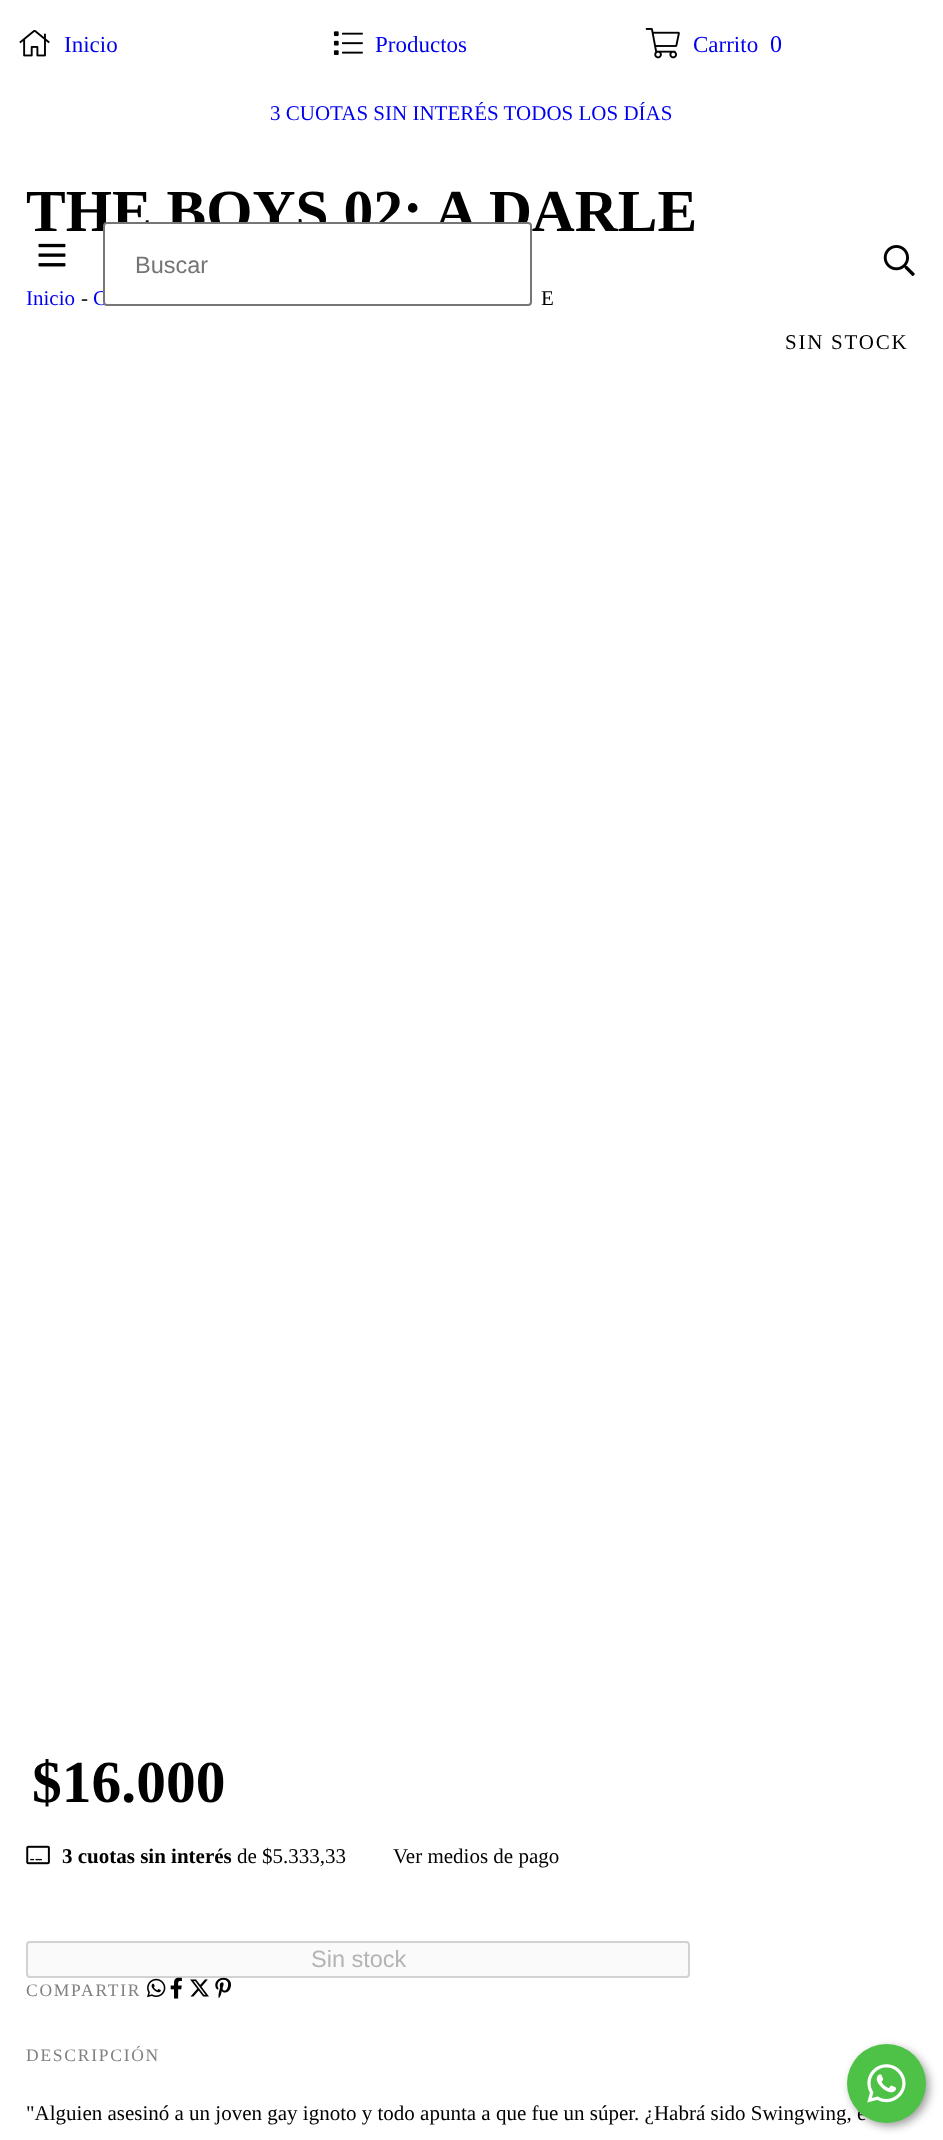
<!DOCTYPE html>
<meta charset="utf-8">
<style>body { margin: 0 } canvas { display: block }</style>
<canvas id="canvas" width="943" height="2140"></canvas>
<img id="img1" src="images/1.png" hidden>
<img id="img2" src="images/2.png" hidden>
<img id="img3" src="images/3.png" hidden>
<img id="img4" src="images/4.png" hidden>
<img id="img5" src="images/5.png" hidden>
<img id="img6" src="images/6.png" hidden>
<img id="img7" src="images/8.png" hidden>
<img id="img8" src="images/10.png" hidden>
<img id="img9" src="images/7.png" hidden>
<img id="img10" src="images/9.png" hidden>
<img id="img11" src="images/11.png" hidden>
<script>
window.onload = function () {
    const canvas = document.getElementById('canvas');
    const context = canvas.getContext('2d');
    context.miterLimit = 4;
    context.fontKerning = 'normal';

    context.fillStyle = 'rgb(255, 255, 255)';
    context.fillRect(0, 0, 943, 2140);
    context.drawImage(document.getElementById('img1'), 19, 29, 31, 28);
    context.drawImage(document.getElementById('img2'), 333, 31, 30, 24);
    context.drawImage(document.getElementById('img3'), 645, 28, 35, 31);
    context.drawImage(document.getElementById('img4'), 38, 243, 28, 24);
    context.drawImage(document.getElementById('img5'), 883, 245, 32, 31);
    context.drawImage(document.getElementById('img6'), 26, 1845, 24, 20);
    context.drawImage(document.getElementById('img7'), 170, 1977, 12, 22);
    context.drawImage(document.getElementById('img8'), 215, 1977, 16, 22);
    context.fillStyle = 'rgba(239, 239, 239, 0.3)';
    context.beginPath();
    context.roundRect(26, 1941, 664, 37, 4);
    context.fill();
    context.beginPath();
    context.roundRect(27, 1942, 662, 35, 3);
    context.strokeStyle = 'rgba(118, 118, 118, 0.3)';
    context.lineWidth = 2;
    context.stroke();
    context.drawImage(document.getElementById('img9'), 147, 1978, 19, 20);
    context.drawImage(document.getElementById('img10'), 190, 1979, 19, 18);
    context.fillStyle = 'rgba(0, 0, 0, 0.4)';
    context.filter = 'blur(5px)';
    context.beginPath();
    context.roundRect(851, 2048, 78, 78, 39);
    context.fill();
    context.filter = 'none';
    context.font = '23px Liberation Serif';
    context.fillStyle = 'rgb(0, 0, 238)';
    context.fillText('Inicio', 64, 52);
    context.fillText('Productos', 375, 52);
    context.fillText('Carrito', 693, 52);
    context.font = '24px Liberation Serif';
    context.fillText('0', 770, 52);
    context.font = '21px Liberation Serif';
    context.fillText('3 CUOTAS SIN INTERÉS TODOS LOS DÍAS', 270, 120);
    context.font = 'bold 59.5px Liberation Serif';
    context.fillStyle = 'rgb(0, 0, 0)';
    context.fillText('THE BOYS 02: A DARLE', 26, 231);
    context.font = '21px Liberation Serif';
    context.fillStyle = 'rgb(0, 0, 238)';
    context.fillText('Inicio', 26, 305);
    context.fillStyle = 'rgb(0, 0, 0)';
    context.fillText('-', 81, 305);
    context.fillStyle = 'rgb(0, 0, 238)';
    context.fillText('C', 93, 305);
    context.fillStyle = 'rgb(255, 255, 255)';
    context.beginPath();
    context.roundRect(104, 223, 427, 82, 3);
    context.fill();
    context.strokeStyle = 'rgb(118, 118, 118)';
    context.stroke();
    context.font = '23.5px Liberation Sans';
    context.fillStyle = 'rgb(117, 117, 117)';
    context.fillText('Buscar', 135, 273);
    context.font = '21px Liberation Serif';
    context.fillStyle = 'rgb(0, 0, 0)';
    context.fillText('E', 541, 305);
    context.letterSpacing = '1.75px';
    context.fillText('SIN STOCK', 785, 349);
    context.letterSpacing = '0px';
    context.font = 'bold 59.5px Liberation Serif';
    context.fillText('$16.000', 32, 1802);
    context.font = 'bold 21px Liberation Serif';
    context.fillText('3 cuotas sin interés', 62, 1863);
    context.font = '21px Liberation Serif';
    context.fillText('de $5.333,33', 237, 1863);
    context.fillText('Ver medios de pago', 393, 1863);
    context.font = '23.5px Liberation Sans';
    context.fillStyle = 'rgb(180, 180, 180)';
    context.fillText('Sin stock', 311, 1967);
    context.letterSpacing = '1.75px';
    context.font = '17.5px Liberation Serif';
    context.fillStyle = 'rgb(128, 128, 128)';
    context.fillText('COMPARTIR', 26, 1996);
    context.fillText('DESCRIPCIÓN', 26, 2061);
    context.letterSpacing = '0px';
    context.font = '21px Liberation Serif';
    context.fillStyle = 'rgb(0, 0, 0)';
    context.fillText('"Alguien asesinó a un joven gay ignoto y todo apunta a que fue un súper. ¿Habrá sido Swingwing, e', 26, 2120);
    context.fillStyle = 'rgb(77, 194, 71)';
    context.beginPath();
    context.arc(886.5, 2083.5, 39.5, 0, 2 * Math.PI);
    context.fill();
    context.drawImage(document.getElementById('img11'), 867, 2064, 39, 39);
};
</script>
